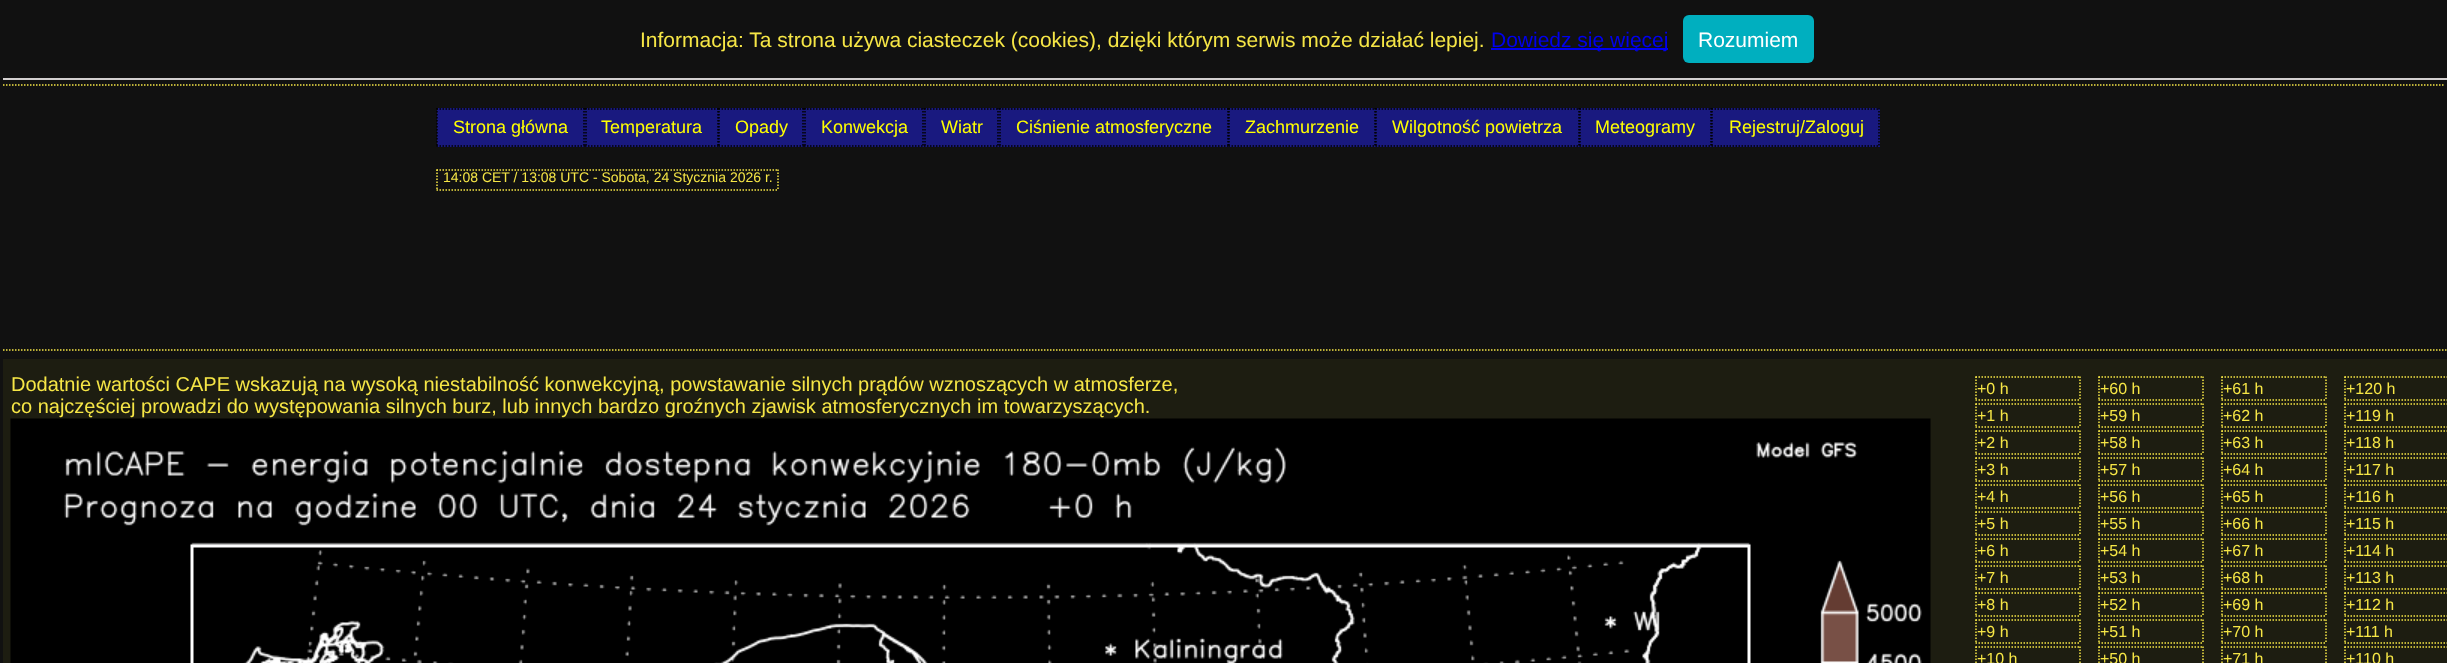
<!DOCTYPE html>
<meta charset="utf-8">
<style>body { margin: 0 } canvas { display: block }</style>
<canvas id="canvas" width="2447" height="663"></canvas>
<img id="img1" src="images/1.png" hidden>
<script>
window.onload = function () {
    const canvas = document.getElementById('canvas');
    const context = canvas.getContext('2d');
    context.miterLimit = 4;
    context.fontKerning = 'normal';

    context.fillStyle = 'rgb(17, 17, 17)';
    context.fillRect(0, 0, 2447, 663);
    context.fillStyle = 'rgb(211, 208, 208)';
    context.fillRect(3, 78, 2444, 2);
    context.fillStyle = 'rgb(0, 0, 238)';
    context.fillRect(1491, 48, 177, 2);
    context.fillStyle = 'rgb(0, 175, 191)';
    context.beginPath();
    context.roundRect(1683, 15, 131, 48, 6);
    context.fill();
    context.beginPath();
    context.moveTo(3, 85);
    context.lineTo(2445, 85);
    context.strokeStyle = 'rgb(246, 230, 70)';
    context.lineWidth = 1.5;
    context.setLineDash([1.5, 1.5]);
    context.stroke();
    context.fillStyle = 'rgb(25, 25, 127)';
    context.fillRect(437, 108, 1443, 39);
    context.beginPath();
    context.moveTo(436.5, 109);
    context.lineTo(585, 109);
    context.strokeStyle = 'rgb(0, 0, 0)';
    context.stroke();
    context.beginPath();
    context.moveTo(584, 108);
    context.lineTo(584, 147);
    context.stroke();
    context.beginPath();
    context.moveTo(436.5, 146);
    context.lineTo(585, 146);
    context.stroke();
    context.beginPath();
    context.moveTo(437, 108);
    context.lineTo(437, 147);
    context.stroke();
    context.beginPath();
    context.moveTo(585, 109);
    context.lineTo(718.5, 109);
    context.stroke();
    context.beginPath();
    context.moveTo(718, 108);
    context.lineTo(718, 147);
    context.stroke();
    context.beginPath();
    context.moveTo(585, 146);
    context.lineTo(718.5, 146);
    context.stroke();
    context.beginPath();
    context.moveTo(586, 108);
    context.lineTo(586, 147);
    context.stroke();
    context.beginPath();
    context.moveTo(718.5, 109);
    context.lineTo(804, 109);
    context.stroke();
    context.beginPath();
    context.moveTo(803, 108);
    context.lineTo(803, 147);
    context.stroke();
    context.beginPath();
    context.moveTo(718.5, 146);
    context.lineTo(804, 146);
    context.stroke();
    context.beginPath();
    context.moveTo(719, 108);
    context.lineTo(719, 147);
    context.stroke();
    context.beginPath();
    context.moveTo(804, 109);
    context.lineTo(924, 109);
    context.stroke();
    context.beginPath();
    context.moveTo(923, 108);
    context.lineTo(923, 147);
    context.stroke();
    context.beginPath();
    context.moveTo(804, 146);
    context.lineTo(924, 146);
    context.stroke();
    context.beginPath();
    context.moveTo(805, 108);
    context.lineTo(805, 147);
    context.stroke();
    context.beginPath();
    context.moveTo(924, 109);
    context.lineTo(999, 109);
    context.stroke();
    context.beginPath();
    context.moveTo(998, 108);
    context.lineTo(998, 147);
    context.stroke();
    context.beginPath();
    context.moveTo(924, 146);
    context.lineTo(999, 146);
    context.stroke();
    context.beginPath();
    context.moveTo(925, 108);
    context.lineTo(925, 147);
    context.stroke();
    context.beginPath();
    context.moveTo(999, 109);
    context.lineTo(1228.5, 109);
    context.stroke();
    context.beginPath();
    context.moveTo(1228, 108);
    context.lineTo(1228, 147);
    context.stroke();
    context.beginPath();
    context.moveTo(999, 146);
    context.lineTo(1228.5, 146);
    context.stroke();
    context.beginPath();
    context.moveTo(1000, 108);
    context.lineTo(1000, 147);
    context.stroke();
    context.beginPath();
    context.moveTo(1228.5, 109);
    context.lineTo(1375.5, 109);
    context.stroke();
    context.beginPath();
    context.moveTo(1375, 108);
    context.lineTo(1375, 147);
    context.stroke();
    context.beginPath();
    context.moveTo(1228.5, 146);
    context.lineTo(1375.5, 146);
    context.stroke();
    context.beginPath();
    context.moveTo(1229, 108);
    context.lineTo(1229, 147);
    context.stroke();
    context.beginPath();
    context.moveTo(1375.5, 109);
    context.lineTo(1579.5, 109);
    context.stroke();
    context.beginPath();
    context.moveTo(1579, 108);
    context.lineTo(1579, 147);
    context.stroke();
    context.beginPath();
    context.moveTo(1375.5, 146);
    context.lineTo(1579.5, 146);
    context.stroke();
    context.beginPath();
    context.moveTo(1376, 108);
    context.lineTo(1376, 147);
    context.stroke();
    context.beginPath();
    context.moveTo(1579.5, 109);
    context.lineTo(1711.5, 109);
    context.stroke();
    context.beginPath();
    context.moveTo(1711, 108);
    context.lineTo(1711, 147);
    context.stroke();
    context.beginPath();
    context.moveTo(1579.5, 146);
    context.lineTo(1711.5, 146);
    context.stroke();
    context.beginPath();
    context.moveTo(1580, 108);
    context.lineTo(1580, 147);
    context.stroke();
    context.beginPath();
    context.moveTo(1711.5, 109);
    context.lineTo(1879.5, 109);
    context.stroke();
    context.beginPath();
    context.moveTo(1879, 108);
    context.lineTo(1879, 147);
    context.stroke();
    context.beginPath();
    context.moveTo(1711.5, 146);
    context.lineTo(1879.5, 146);
    context.stroke();
    context.beginPath();
    context.moveTo(1712, 108);
    context.lineTo(1712, 147);
    context.stroke();
    context.beginPath();
    context.moveTo(436.5, 170);
    context.lineTo(778.5, 170);
    context.strokeStyle = 'rgb(246, 230, 70)';
    context.stroke();
    context.beginPath();
    context.moveTo(778, 169.5);
    context.lineTo(778, 190.5);
    context.stroke();
    context.beginPath();
    context.moveTo(436.5, 190);
    context.lineTo(778.5, 190);
    context.stroke();
    context.beginPath();
    context.moveTo(437, 169.5);
    context.lineTo(437, 190.5);
    context.stroke();
    context.beginPath();
    context.moveTo(3, 350);
    context.lineTo(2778, 350);
    context.stroke();
    context.fillStyle = 'rgb(29, 29, 17)';
    context.fillRect(3, 359, 2444, 304);
    context.drawImage(document.getElementById('img1'), 10, 418, 1921, 245);
    context.beginPath();
    context.moveTo(1975.5, 377);
    context.lineTo(2080.5, 377);
    context.stroke();
    context.beginPath();
    context.moveTo(2080, 376.5);
    context.lineTo(2080, 400.5);
    context.stroke();
    context.beginPath();
    context.moveTo(1975.5, 400);
    context.lineTo(2080.5, 400);
    context.stroke();
    context.beginPath();
    context.moveTo(1976, 376.5);
    context.lineTo(1976, 400.5);
    context.stroke();
    context.beginPath();
    context.moveTo(1975.5, 404);
    context.lineTo(2080.5, 404);
    context.stroke();
    context.beginPath();
    context.moveTo(2080, 403.5);
    context.lineTo(2080, 427.5);
    context.stroke();
    context.beginPath();
    context.moveTo(1975.5, 427);
    context.lineTo(2080.5, 427);
    context.stroke();
    context.beginPath();
    context.moveTo(1976, 403.5);
    context.lineTo(1976, 427.5);
    context.stroke();
    context.beginPath();
    context.moveTo(1975.5, 431);
    context.lineTo(2080.5, 431);
    context.stroke();
    context.beginPath();
    context.moveTo(2080, 430.5);
    context.lineTo(2080, 454.5);
    context.stroke();
    context.beginPath();
    context.moveTo(1975.5, 454);
    context.lineTo(2080.5, 454);
    context.stroke();
    context.beginPath();
    context.moveTo(1976, 430.5);
    context.lineTo(1976, 454.5);
    context.stroke();
    context.beginPath();
    context.moveTo(1975.5, 458);
    context.lineTo(2080.5, 458);
    context.stroke();
    context.beginPath();
    context.moveTo(2080, 457.5);
    context.lineTo(2080, 481.5);
    context.stroke();
    context.beginPath();
    context.moveTo(1975.5, 481);
    context.lineTo(2080.5, 481);
    context.stroke();
    context.beginPath();
    context.moveTo(1976, 457.5);
    context.lineTo(1976, 481.5);
    context.stroke();
    context.beginPath();
    context.moveTo(1975.5, 485);
    context.lineTo(2080.5, 485);
    context.stroke();
    context.beginPath();
    context.moveTo(2080, 484.5);
    context.lineTo(2080, 508.5);
    context.stroke();
    context.beginPath();
    context.moveTo(1975.5, 508);
    context.lineTo(2080.5, 508);
    context.stroke();
    context.beginPath();
    context.moveTo(1976, 484.5);
    context.lineTo(1976, 508.5);
    context.stroke();
    context.beginPath();
    context.moveTo(1975.5, 512);
    context.lineTo(2080.5, 512);
    context.stroke();
    context.beginPath();
    context.moveTo(2080, 511.5);
    context.lineTo(2080, 535.5);
    context.stroke();
    context.beginPath();
    context.moveTo(1975.5, 535);
    context.lineTo(2080.5, 535);
    context.stroke();
    context.beginPath();
    context.moveTo(1976, 511.5);
    context.lineTo(1976, 535.5);
    context.stroke();
    context.beginPath();
    context.moveTo(1975.5, 539);
    context.lineTo(2080.5, 539);
    context.stroke();
    context.beginPath();
    context.moveTo(2080, 538.5);
    context.lineTo(2080, 562.5);
    context.stroke();
    context.beginPath();
    context.moveTo(1975.5, 562);
    context.lineTo(2080.5, 562);
    context.stroke();
    context.beginPath();
    context.moveTo(1976, 538.5);
    context.lineTo(1976, 562.5);
    context.stroke();
    context.beginPath();
    context.moveTo(1975.5, 566);
    context.lineTo(2080.5, 566);
    context.stroke();
    context.beginPath();
    context.moveTo(2080, 565.5);
    context.lineTo(2080, 589.5);
    context.stroke();
    context.beginPath();
    context.moveTo(1975.5, 589);
    context.lineTo(2080.5, 589);
    context.stroke();
    context.beginPath();
    context.moveTo(1976, 565.5);
    context.lineTo(1976, 589.5);
    context.stroke();
    context.beginPath();
    context.moveTo(1975.5, 593);
    context.lineTo(2080.5, 593);
    context.stroke();
    context.beginPath();
    context.moveTo(2080, 592.5);
    context.lineTo(2080, 616.5);
    context.stroke();
    context.beginPath();
    context.moveTo(1975.5, 616);
    context.lineTo(2080.5, 616);
    context.stroke();
    context.beginPath();
    context.moveTo(1976, 592.5);
    context.lineTo(1976, 616.5);
    context.stroke();
    context.beginPath();
    context.moveTo(1975.5, 620);
    context.lineTo(2080.5, 620);
    context.stroke();
    context.beginPath();
    context.moveTo(2080, 619.5);
    context.lineTo(2080, 643.5);
    context.stroke();
    context.beginPath();
    context.moveTo(1975.5, 643);
    context.lineTo(2080.5, 643);
    context.stroke();
    context.beginPath();
    context.moveTo(1976, 619.5);
    context.lineTo(1976, 643.5);
    context.stroke();
    context.beginPath();
    context.moveTo(1975.5, 647);
    context.lineTo(2080.5, 647);
    context.stroke();
    context.beginPath();
    context.moveTo(2080, 646.5);
    context.lineTo(2080, 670.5);
    context.stroke();
    context.beginPath();
    context.moveTo(1976, 646.5);
    context.lineTo(1976, 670.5);
    context.stroke();
    context.beginPath();
    context.moveTo(2098.5, 377);
    context.lineTo(2203.5, 377);
    context.stroke();
    context.beginPath();
    context.moveTo(2203, 376.5);
    context.lineTo(2203, 400.5);
    context.stroke();
    context.beginPath();
    context.moveTo(2098.5, 400);
    context.lineTo(2203.5, 400);
    context.stroke();
    context.beginPath();
    context.moveTo(2099, 376.5);
    context.lineTo(2099, 400.5);
    context.stroke();
    context.beginPath();
    context.moveTo(2098.5, 404);
    context.lineTo(2203.5, 404);
    context.stroke();
    context.beginPath();
    context.moveTo(2203, 403.5);
    context.lineTo(2203, 427.5);
    context.stroke();
    context.beginPath();
    context.moveTo(2098.5, 427);
    context.lineTo(2203.5, 427);
    context.stroke();
    context.beginPath();
    context.moveTo(2099, 403.5);
    context.lineTo(2099, 427.5);
    context.stroke();
    context.beginPath();
    context.moveTo(2098.5, 431);
    context.lineTo(2203.5, 431);
    context.stroke();
    context.beginPath();
    context.moveTo(2203, 430.5);
    context.lineTo(2203, 454.5);
    context.stroke();
    context.beginPath();
    context.moveTo(2098.5, 454);
    context.lineTo(2203.5, 454);
    context.stroke();
    context.beginPath();
    context.moveTo(2099, 430.5);
    context.lineTo(2099, 454.5);
    context.stroke();
    context.beginPath();
    context.moveTo(2098.5, 458);
    context.lineTo(2203.5, 458);
    context.stroke();
    context.beginPath();
    context.moveTo(2203, 457.5);
    context.lineTo(2203, 481.5);
    context.stroke();
    context.beginPath();
    context.moveTo(2098.5, 481);
    context.lineTo(2203.5, 481);
    context.stroke();
    context.beginPath();
    context.moveTo(2099, 457.5);
    context.lineTo(2099, 481.5);
    context.stroke();
    context.beginPath();
    context.moveTo(2098.5, 485);
    context.lineTo(2203.5, 485);
    context.stroke();
    context.beginPath();
    context.moveTo(2203, 484.5);
    context.lineTo(2203, 508.5);
    context.stroke();
    context.beginPath();
    context.moveTo(2098.5, 508);
    context.lineTo(2203.5, 508);
    context.stroke();
    context.beginPath();
    context.moveTo(2099, 484.5);
    context.lineTo(2099, 508.5);
    context.stroke();
    context.beginPath();
    context.moveTo(2098.5, 512);
    context.lineTo(2203.5, 512);
    context.stroke();
    context.beginPath();
    context.moveTo(2203, 511.5);
    context.lineTo(2203, 535.5);
    context.stroke();
    context.beginPath();
    context.moveTo(2098.5, 535);
    context.lineTo(2203.5, 535);
    context.stroke();
    context.beginPath();
    context.moveTo(2099, 511.5);
    context.lineTo(2099, 535.5);
    context.stroke();
    context.beginPath();
    context.moveTo(2098.5, 539);
    context.lineTo(2203.5, 539);
    context.stroke();
    context.beginPath();
    context.moveTo(2203, 538.5);
    context.lineTo(2203, 562.5);
    context.stroke();
    context.beginPath();
    context.moveTo(2098.5, 562);
    context.lineTo(2203.5, 562);
    context.stroke();
    context.beginPath();
    context.moveTo(2099, 538.5);
    context.lineTo(2099, 562.5);
    context.stroke();
    context.beginPath();
    context.moveTo(2098.5, 566);
    context.lineTo(2203.5, 566);
    context.stroke();
    context.beginPath();
    context.moveTo(2203, 565.5);
    context.lineTo(2203, 589.5);
    context.stroke();
    context.beginPath();
    context.moveTo(2098.5, 589);
    context.lineTo(2203.5, 589);
    context.stroke();
    context.beginPath();
    context.moveTo(2099, 565.5);
    context.lineTo(2099, 589.5);
    context.stroke();
    context.beginPath();
    context.moveTo(2098.5, 593);
    context.lineTo(2203.5, 593);
    context.stroke();
    context.beginPath();
    context.moveTo(2203, 592.5);
    context.lineTo(2203, 616.5);
    context.stroke();
    context.beginPath();
    context.moveTo(2098.5, 616);
    context.lineTo(2203.5, 616);
    context.stroke();
    context.beginPath();
    context.moveTo(2099, 592.5);
    context.lineTo(2099, 616.5);
    context.stroke();
    context.beginPath();
    context.moveTo(2098.5, 620);
    context.lineTo(2203.5, 620);
    context.stroke();
    context.beginPath();
    context.moveTo(2203, 619.5);
    context.lineTo(2203, 643.5);
    context.stroke();
    context.beginPath();
    context.moveTo(2098.5, 643);
    context.lineTo(2203.5, 643);
    context.stroke();
    context.beginPath();
    context.moveTo(2099, 619.5);
    context.lineTo(2099, 643.5);
    context.stroke();
    context.beginPath();
    context.moveTo(2098.5, 647);
    context.lineTo(2203.5, 647);
    context.stroke();
    context.beginPath();
    context.moveTo(2203, 646.5);
    context.lineTo(2203, 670.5);
    context.stroke();
    context.beginPath();
    context.moveTo(2099, 646.5);
    context.lineTo(2099, 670.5);
    context.stroke();
    context.beginPath();
    context.moveTo(2221.5, 377);
    context.lineTo(2326.5, 377);
    context.stroke();
    context.beginPath();
    context.moveTo(2326, 376.5);
    context.lineTo(2326, 400.5);
    context.stroke();
    context.beginPath();
    context.moveTo(2221.5, 400);
    context.lineTo(2326.5, 400);
    context.stroke();
    context.beginPath();
    context.moveTo(2222, 376.5);
    context.lineTo(2222, 400.5);
    context.stroke();
    context.beginPath();
    context.moveTo(2221.5, 404);
    context.lineTo(2326.5, 404);
    context.stroke();
    context.beginPath();
    context.moveTo(2326, 403.5);
    context.lineTo(2326, 427.5);
    context.stroke();
    context.beginPath();
    context.moveTo(2221.5, 427);
    context.lineTo(2326.5, 427);
    context.stroke();
    context.beginPath();
    context.moveTo(2222, 403.5);
    context.lineTo(2222, 427.5);
    context.stroke();
    context.beginPath();
    context.moveTo(2221.5, 431);
    context.lineTo(2326.5, 431);
    context.stroke();
    context.beginPath();
    context.moveTo(2326, 430.5);
    context.lineTo(2326, 454.5);
    context.stroke();
    context.beginPath();
    context.moveTo(2221.5, 454);
    context.lineTo(2326.5, 454);
    context.stroke();
    context.beginPath();
    context.moveTo(2222, 430.5);
    context.lineTo(2222, 454.5);
    context.stroke();
    context.beginPath();
    context.moveTo(2221.5, 458);
    context.lineTo(2326.5, 458);
    context.stroke();
    context.beginPath();
    context.moveTo(2326, 457.5);
    context.lineTo(2326, 481.5);
    context.stroke();
    context.beginPath();
    context.moveTo(2221.5, 481);
    context.lineTo(2326.5, 481);
    context.stroke();
    context.beginPath();
    context.moveTo(2222, 457.5);
    context.lineTo(2222, 481.5);
    context.stroke();
    context.beginPath();
    context.moveTo(2221.5, 485);
    context.lineTo(2326.5, 485);
    context.stroke();
    context.beginPath();
    context.moveTo(2326, 484.5);
    context.lineTo(2326, 508.5);
    context.stroke();
    context.beginPath();
    context.moveTo(2221.5, 508);
    context.lineTo(2326.5, 508);
    context.stroke();
    context.beginPath();
    context.moveTo(2222, 484.5);
    context.lineTo(2222, 508.5);
    context.stroke();
    context.beginPath();
    context.moveTo(2221.5, 512);
    context.lineTo(2326.5, 512);
    context.stroke();
    context.beginPath();
    context.moveTo(2326, 511.5);
    context.lineTo(2326, 535.5);
    context.stroke();
    context.beginPath();
    context.moveTo(2221.5, 535);
    context.lineTo(2326.5, 535);
    context.stroke();
    context.beginPath();
    context.moveTo(2222, 511.5);
    context.lineTo(2222, 535.5);
    context.stroke();
    context.beginPath();
    context.moveTo(2221.5, 539);
    context.lineTo(2326.5, 539);
    context.stroke();
    context.beginPath();
    context.moveTo(2326, 538.5);
    context.lineTo(2326, 562.5);
    context.stroke();
    context.beginPath();
    context.moveTo(2221.5, 562);
    context.lineTo(2326.5, 562);
    context.stroke();
    context.beginPath();
    context.moveTo(2222, 538.5);
    context.lineTo(2222, 562.5);
    context.stroke();
    context.beginPath();
    context.moveTo(2221.5, 566);
    context.lineTo(2326.5, 566);
    context.stroke();
    context.beginPath();
    context.moveTo(2326, 565.5);
    context.lineTo(2326, 589.5);
    context.stroke();
    context.beginPath();
    context.moveTo(2221.5, 589);
    context.lineTo(2326.5, 589);
    context.stroke();
    context.beginPath();
    context.moveTo(2222, 565.5);
    context.lineTo(2222, 589.5);
    context.stroke();
    context.beginPath();
    context.moveTo(2221.5, 593);
    context.lineTo(2326.5, 593);
    context.stroke();
    context.beginPath();
    context.moveTo(2326, 592.5);
    context.lineTo(2326, 616.5);
    context.stroke();
    context.beginPath();
    context.moveTo(2221.5, 616);
    context.lineTo(2326.5, 616);
    context.stroke();
    context.beginPath();
    context.moveTo(2222, 592.5);
    context.lineTo(2222, 616.5);
    context.stroke();
    context.beginPath();
    context.moveTo(2221.5, 620);
    context.lineTo(2326.5, 620);
    context.stroke();
    context.beginPath();
    context.moveTo(2326, 619.5);
    context.lineTo(2326, 643.5);
    context.stroke();
    context.beginPath();
    context.moveTo(2221.5, 643);
    context.lineTo(2326.5, 643);
    context.stroke();
    context.beginPath();
    context.moveTo(2222, 619.5);
    context.lineTo(2222, 643.5);
    context.stroke();
    context.beginPath();
    context.moveTo(2221.5, 647);
    context.lineTo(2326.5, 647);
    context.stroke();
    context.beginPath();
    context.moveTo(2326, 646.5);
    context.lineTo(2326, 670.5);
    context.stroke();
    context.beginPath();
    context.moveTo(2222, 646.5);
    context.lineTo(2222, 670.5);
    context.stroke();
    context.beginPath();
    context.moveTo(2344.5, 377);
    context.lineTo(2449.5, 377);
    context.stroke();
    context.beginPath();
    context.moveTo(2344.5, 400);
    context.lineTo(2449.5, 400);
    context.stroke();
    context.beginPath();
    context.moveTo(2345, 376.5);
    context.lineTo(2345, 400.5);
    context.stroke();
    context.beginPath();
    context.moveTo(2344.5, 404);
    context.lineTo(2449.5, 404);
    context.stroke();
    context.beginPath();
    context.moveTo(2344.5, 427);
    context.lineTo(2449.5, 427);
    context.stroke();
    context.beginPath();
    context.moveTo(2345, 403.5);
    context.lineTo(2345, 427.5);
    context.stroke();
    context.beginPath();
    context.moveTo(2344.5, 431);
    context.lineTo(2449.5, 431);
    context.stroke();
    context.beginPath();
    context.moveTo(2344.5, 454);
    context.lineTo(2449.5, 454);
    context.stroke();
    context.beginPath();
    context.moveTo(2345, 430.5);
    context.lineTo(2345, 454.5);
    context.stroke();
    context.beginPath();
    context.moveTo(2344.5, 458);
    context.lineTo(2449.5, 458);
    context.stroke();
    context.beginPath();
    context.moveTo(2344.5, 481);
    context.lineTo(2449.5, 481);
    context.stroke();
    context.beginPath();
    context.moveTo(2345, 457.5);
    context.lineTo(2345, 481.5);
    context.stroke();
    context.beginPath();
    context.moveTo(2344.5, 485);
    context.lineTo(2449.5, 485);
    context.stroke();
    context.beginPath();
    context.moveTo(2344.5, 508);
    context.lineTo(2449.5, 508);
    context.stroke();
    context.beginPath();
    context.moveTo(2345, 484.5);
    context.lineTo(2345, 508.5);
    context.stroke();
    context.beginPath();
    context.moveTo(2344.5, 512);
    context.lineTo(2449.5, 512);
    context.stroke();
    context.beginPath();
    context.moveTo(2344.5, 535);
    context.lineTo(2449.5, 535);
    context.stroke();
    context.beginPath();
    context.moveTo(2345, 511.5);
    context.lineTo(2345, 535.5);
    context.stroke();
    context.beginPath();
    context.moveTo(2344.5, 539);
    context.lineTo(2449.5, 539);
    context.stroke();
    context.beginPath();
    context.moveTo(2344.5, 562);
    context.lineTo(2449.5, 562);
    context.stroke();
    context.beginPath();
    context.moveTo(2345, 538.5);
    context.lineTo(2345, 562.5);
    context.stroke();
    context.beginPath();
    context.moveTo(2344.5, 566);
    context.lineTo(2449.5, 566);
    context.stroke();
    context.beginPath();
    context.moveTo(2344.5, 589);
    context.lineTo(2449.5, 589);
    context.stroke();
    context.beginPath();
    context.moveTo(2345, 565.5);
    context.lineTo(2345, 589.5);
    context.stroke();
    context.beginPath();
    context.moveTo(2344.5, 593);
    context.lineTo(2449.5, 593);
    context.stroke();
    context.beginPath();
    context.moveTo(2344.5, 616);
    context.lineTo(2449.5, 616);
    context.stroke();
    context.beginPath();
    context.moveTo(2345, 592.5);
    context.lineTo(2345, 616.5);
    context.stroke();
    context.beginPath();
    context.moveTo(2344.5, 620);
    context.lineTo(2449.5, 620);
    context.stroke();
    context.beginPath();
    context.moveTo(2344.5, 643);
    context.lineTo(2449.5, 643);
    context.stroke();
    context.beginPath();
    context.moveTo(2345, 619.5);
    context.lineTo(2345, 643.5);
    context.stroke();
    context.beginPath();
    context.moveTo(2344.5, 647);
    context.lineTo(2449.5, 647);
    context.stroke();
    context.beginPath();
    context.moveTo(2345, 646.5);
    context.lineTo(2345, 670.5);
    context.stroke();
    context.font = '21px Liberation Sans';
    context.fillStyle = 'rgb(246, 230, 70)';
    context.fillText('Informacja: Ta strona używa ciasteczek (cookies), dzięki którym serwis może działać lepiej.', 640, 47);
    context.fillStyle = 'rgb(0, 0, 238)';
    context.fillText('Dowiedz się więcej', 1491, 47);
    context.fillStyle = 'rgb(255, 255, 255)';
    context.fillText('Rozumiem', 1698, 47);
    context.font = '18px Liberation Sans';
    context.fillStyle = 'rgb(255, 255, 0)';
    context.fillText('Strona główna', 453, 133);
    context.fillText('Temperatura', 601, 133);
    context.fillText('Opady', 735, 133);
    context.fillText('Konwekcja', 821, 133);
    context.fillText('Wiatr', 941, 133);
    context.fillText('Ciśnienie atmosferyczne', 1016, 133);
    context.fillText('Zachmurzenie', 1245, 133);
    context.fillText('Wilgotność powietrza', 1392, 133);
    context.fillText('Meteogramy', 1595, 133);
    context.fillText('Rejestruj/Zaloguj', 1729, 133);
    context.font = '14px Liberation Sans';
    context.fillStyle = 'rgb(246, 230, 70)';
    context.fillText('14:08 CET / 13:08 UTC - Sobota, 24 Stycznia 2026 r.', 443, 182);
    context.font = '20px Liberation Sans';
    context.fillText('Dodatnie wartości CAPE wskazują na wysoką niestabilność konwekcyjną, powstawanie silnych prądów wznoszących w atmosferze,', 11, 391);
    context.fillText('co najczęściej prowadzi do występowania silnych burz, lub innych bardzo groźnych zjawisk atmosferycznych im towarzyszących.', 11, 413);
    context.font = '16px Liberation Sans';
    context.fillText('+0 h', 1977, 394);
    context.fillText('+1 h', 1977, 421);
    context.fillText('+2 h', 1977, 448);
    context.fillText('+3 h', 1977, 475);
    context.fillText('+4 h', 1977, 502);
    context.fillText('+5 h', 1977, 529);
    context.fillText('+6 h', 1977, 556);
    context.fillText('+7 h', 1977, 583);
    context.fillText('+8 h', 1977, 610);
    context.fillText('+9 h', 1977, 637);
    context.fillText('+10 h', 1977, 664);
    context.fillText('+60 h', 2100, 394);
    context.fillText('+59 h', 2100, 421);
    context.fillText('+58 h', 2100, 448);
    context.fillText('+57 h', 2100, 475);
    context.fillText('+56 h', 2100, 502);
    context.fillText('+55 h', 2100, 529);
    context.fillText('+54 h', 2100, 556);
    context.fillText('+53 h', 2100, 583);
    context.fillText('+52 h', 2100, 610);
    context.fillText('+51 h', 2100, 637);
    context.fillText('+50 h', 2100, 664);
    context.fillText('+61 h', 2223, 394);
    context.fillText('+62 h', 2223, 421);
    context.fillText('+63 h', 2223, 448);
    context.fillText('+64 h', 2223, 475);
    context.fillText('+65 h', 2223, 502);
    context.fillText('+66 h', 2223, 529);
    context.fillText('+67 h', 2223, 556);
    context.fillText('+68 h', 2223, 583);
    context.fillText('+69 h', 2223, 610);
    context.fillText('+70 h', 2223, 637);
    context.fillText('+71 h', 2223, 664);
    context.fillText('+120 h', 2346, 394);
    context.fillText('+119 h', 2346, 421);
    context.fillText('+118 h', 2346, 448);
    context.fillText('+117 h', 2346, 475);
    context.fillText('+116 h', 2346, 502);
    context.fillText('+115 h', 2346, 529);
    context.fillText('+114 h', 2346, 556);
    context.fillText('+113 h', 2346, 583);
    context.fillText('+112 h', 2346, 610);
    context.fillText('+111 h', 2346, 637);
    context.fillText('+110 h', 2346, 664);
};
</script>
